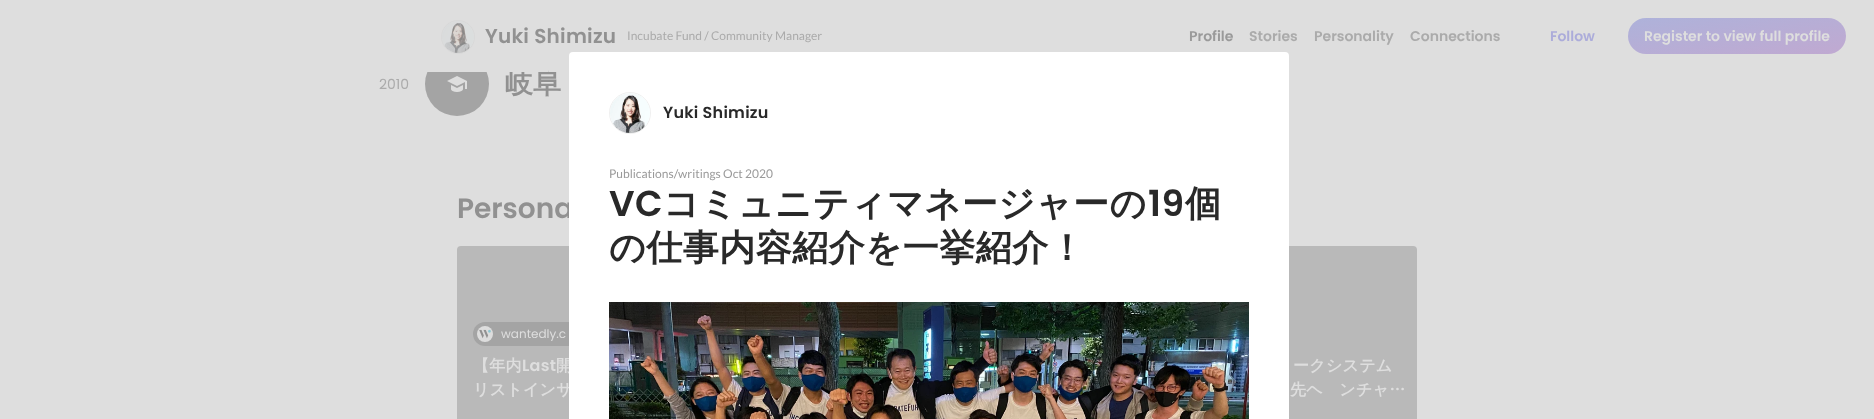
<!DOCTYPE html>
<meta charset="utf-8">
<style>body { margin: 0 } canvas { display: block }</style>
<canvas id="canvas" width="1874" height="419"></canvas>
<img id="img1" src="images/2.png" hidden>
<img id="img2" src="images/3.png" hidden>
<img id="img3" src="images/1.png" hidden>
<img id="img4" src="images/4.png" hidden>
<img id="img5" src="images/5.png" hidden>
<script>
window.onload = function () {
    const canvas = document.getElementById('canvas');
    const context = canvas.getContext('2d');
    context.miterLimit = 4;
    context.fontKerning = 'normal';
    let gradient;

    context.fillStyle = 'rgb(222, 222, 222)';
    context.fillRect(0, 0, 1874, 419);
    gradient = context.createLinearGradient(1731, 1, 1743, 71);
    gradient.addColorStop(0, 'rgb(174, 178, 218)');
    gradient.addColorStop(1, 'rgb(192, 169, 209)');
    context.fillStyle = gradient;
    context.beginPath();
    context.roundRect(1628, 18, 218, 36, 18);
    context.fill();
    context.fillStyle = 'rgb(164, 164, 164)';
    context.beginPath();
    context.arc(457, 84, 32, 0, 2 * Math.PI);
    context.fill();
    context.drawImage(document.getElementById('img1'), 447, 76, 20, 16);
    context.fillStyle = 'rgba(131, 131, 131, 0.4)';
    context.beginPath();
    context.roundRect(457, 246, 472, 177, 4);
    context.fill();
    context.fillStyle = 'rgb(164, 164, 164)';
    context.beginPath();
    context.roundRect(473, 322, 125, 24, 12);
    context.fill();
    context.drawImage(document.getElementById('img2'), 477, 326, 16, 16);
    context.fillStyle = 'rgba(131, 131, 131, 0.4)';
    context.beginPath();
    context.roundRect(945, 246, 472, 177, 4);
    context.fill();
    context.letterSpacing = '0.25px';
    context.font = '600 20px Poppins';
    context.fillStyle = 'rgb(145, 145, 145)';
    context.fillText('Yuki Shimizu', 485, 43);
    context.letterSpacing = '0px';
    context.font = '12px Lato';
    context.fillStyle = 'rgb(171, 171, 171)';
    context.fillText('Incubate Fund / Community Manager', 627, 40);
    context.font = '600 14px Poppins';
    context.fillStyle = 'rgb(154, 154, 154)';
    context.fillText('Profile', 1189, 41);
    context.fillStyle = 'rgb(171, 171, 171)';
    context.fillText('Stories', 1249, 41);
    context.fillText('Personality', 1314, 41);
    context.fillText('Connections', 1410, 41);
    context.fillStyle = 'rgb(172, 172, 218)';
    context.fillText('Follow', 1550, 41);
    context.fillStyle = 'rgb(222, 222, 222)';
    context.fillText('Register to view full profile', 1644, 41);
    context.font = '14px Poppins';
    context.fillStyle = 'rgb(171, 171, 171)';
    context.fillText('2010', 379, 89);
    context.font = 'bold 28px WenQuanYi Zen Hei';
    context.fillStyle = 'rgb(145, 145, 145)';
    context.fillText('岐阜', 505, 93);
    context.fillStyle = 'rgb(222, 222, 222)';
    context.fillRect(427, 52, 121, 20);
    context.beginPath();
    context.arc(458, 37, 16.5, 0, 2 * Math.PI);
    context.strokeStyle = 'rgb(217, 217, 217)';
    context.stroke();
    context.drawImage(document.getElementById('img3'), 442, 21, 32, 32);
    context.font = '600 28px Poppins';
    context.fillStyle = 'rgb(145, 145, 145)';
    context.fillText('Persona', 457, 218);
    context.font = '12px Poppins';
    context.fillStyle = 'rgb(222, 222, 222)';
    context.fillText('wantedly.c', 501, 338);
    context.letterSpacing = '0.25px';
    context.font = 'bold 16px WenQuanYi Zen Hei';
    context.fillText('【年内', 473, 371);
    context.font = '600 16px Poppins';
    context.fillText('Last', 522, 371);
    context.font = 'bold 16px WenQuanYi Zen Hei';
    context.fillText('開', 556, 371);
    context.fillText('リストインサ', 473, 395);
    context.fillText('ークシステム', 1293, 371);
    context.fillText('先ベンチャ…', 1290, 395);
    context.fillStyle = 'rgb(255, 255, 255)';
    context.beginPath();
    context.roundRect(569, 52, 720, 367, [4, 4, 0, 0]);
    context.fill();
    context.beginPath();
    context.arc(630, 113, 20.5, 0, 2 * Math.PI);
    context.strokeStyle = 'rgb(240, 240, 240)';
    context.stroke();
    context.drawImage(document.getElementById('img4'), 610, 93, 40, 40);
    context.font = '600 16px Poppins';
    context.fillStyle = 'rgb(41, 41, 41)';
    context.fillText('Yuki Shimizu', 663, 118);
    context.letterSpacing = '0px';
    context.font = '12px Lato';
    context.fillStyle = 'rgb(154, 154, 154)';
    context.fillText('Publications/writings Oct 2020', 609, 178);
    context.letterSpacing = '0.5px';
    context.font = '600 36px Poppins';
    context.fillStyle = 'rgb(41, 41, 41)';
    context.fillText('VC', 609, 216);
    context.font = 'bold 36px WenQuanYi Zen Hei';
    context.fillText('コミュニティマネージャーの', 663, 216);
    context.font = '600 36px Poppins';
    context.fillText('19', 1148, 216);
    context.font = 'bold 36px WenQuanYi Zen Hei';
    context.fillText('個', 1185, 216);
    context.fillText('の仕事内容紹介を一挙紹介！', 609, 260);
    context.drawImage(document.getElementById('img5'), 609, 302, 640, 117);
};
</script>
